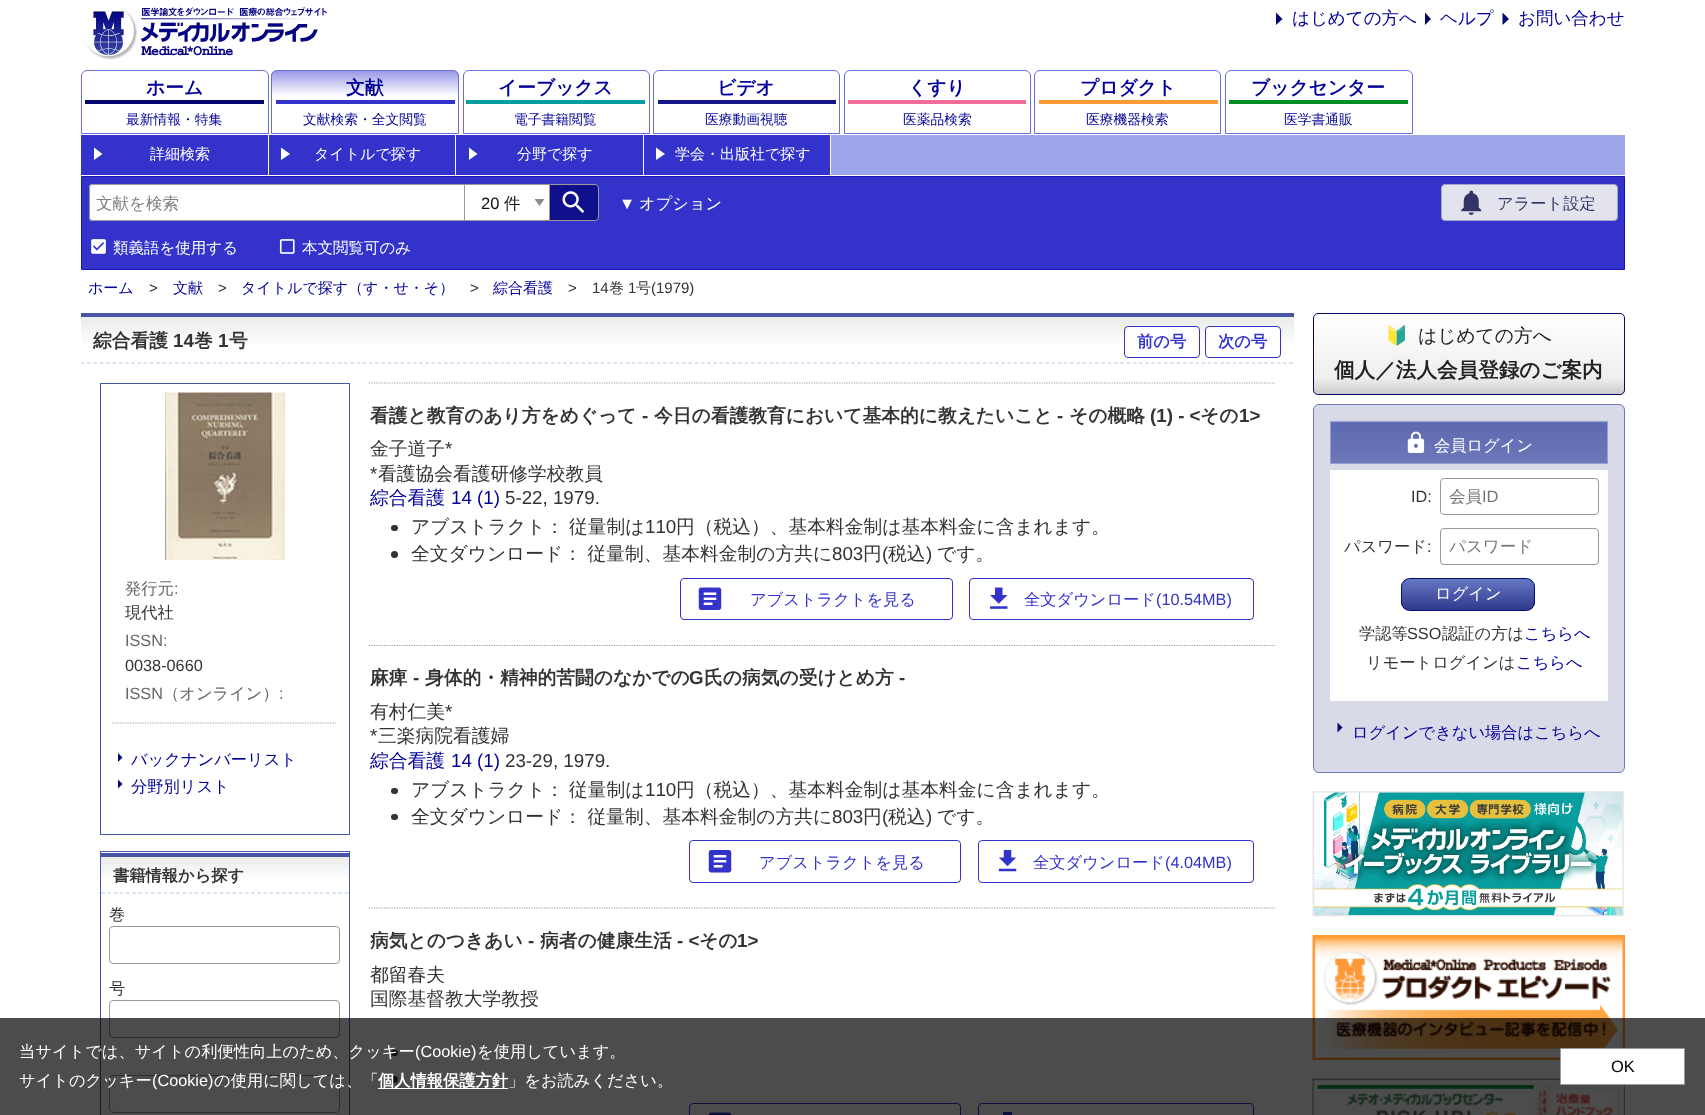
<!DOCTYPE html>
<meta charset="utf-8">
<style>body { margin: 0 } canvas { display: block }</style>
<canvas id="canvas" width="1705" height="1115"></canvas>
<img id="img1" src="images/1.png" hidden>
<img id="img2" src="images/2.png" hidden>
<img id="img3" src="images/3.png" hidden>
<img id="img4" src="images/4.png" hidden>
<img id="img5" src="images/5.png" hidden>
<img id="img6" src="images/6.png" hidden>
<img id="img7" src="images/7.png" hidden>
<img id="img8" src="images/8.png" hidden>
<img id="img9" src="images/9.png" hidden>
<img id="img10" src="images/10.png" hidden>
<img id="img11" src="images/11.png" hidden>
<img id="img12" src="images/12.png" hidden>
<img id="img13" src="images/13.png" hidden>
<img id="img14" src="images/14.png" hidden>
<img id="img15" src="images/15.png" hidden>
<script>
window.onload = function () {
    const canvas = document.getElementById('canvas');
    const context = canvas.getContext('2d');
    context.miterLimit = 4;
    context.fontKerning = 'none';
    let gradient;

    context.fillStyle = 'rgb(255, 255, 255)';
    context.fillRect(0, 0, 1705, 1115);
    context.drawImage(document.getElementById('img1'), 84, 6, 243, 54);
    context.fillStyle = 'rgb(3, 8, 112)';
    context.beginPath();
    context.moveTo(1276, 25);
    context.lineTo(1276, 12.5);
    context.lineTo(1282.5, 19);
    context.closePath();
    context.fill();
    context.beginPath();
    context.moveTo(1425, 25);
    context.lineTo(1425, 12.5);
    context.lineTo(1431, 19);
    context.closePath();
    context.fill();
    context.beginPath();
    context.moveTo(1502.5, 25);
    context.lineTo(1502.5, 12.5);
    context.lineTo(1509, 19);
    context.closePath();
    context.fill();
    context.beginPath();
    context.roundRect(81.5, 70.5, 187, 63, [5.5, 5.5, 0, 0]);
    context.strokeStyle = 'rgb(108, 108, 218)';
    context.stroke();
    context.fillRect(85, 100, 179, 4);
    context.save();
    context.beginPath();
    context.roundRect(271, 70, 188, 64, [6, 6, 0, 0]);
    context.clip();
    gradient = context.createLinearGradient(365, 71, 365, 133);
    gradient.addColorStop(0, 'rgb(153, 153, 230)');
    gradient.addColorStop(0.2, 'rgb(204, 204, 242)');
    gradient.addColorStop(0.4, 'rgb(255, 255, 255)');
    context.fillStyle = gradient;
    context.fillRect(271, 71, 188, 62);
    context.restore();
    context.beginPath();
    context.roundRect(271.5, 70.5, 187, 63, [5.5, 5.5, 0, 0]);
    context.stroke();
    context.fillStyle = 'rgb(51, 51, 204)';
    context.fillRect(276, 100, 179, 4);
    context.beginPath();
    context.roundRect(463.5, 70.5, 186, 63, [5.5, 5.5, 0, 0]);
    context.stroke();
    context.fillStyle = 'rgb(8, 158, 159)';
    context.fillRect(466, 100, 179, 4);
    context.beginPath();
    context.roundRect(653.5, 70.5, 186, 63, [5.5, 5.5, 0, 0]);
    context.stroke();
    context.fillStyle = 'rgb(20, 23, 140)';
    context.fillRect(658, 100, 178, 4);
    context.beginPath();
    context.roundRect(844.5, 70.5, 186, 63, [5.5, 5.5, 0, 0]);
    context.stroke();
    context.fillStyle = 'rgb(240, 109, 154)';
    context.fillRect(848, 100, 178, 4);
    context.beginPath();
    context.roundRect(1034.5, 70.5, 186, 63, [5.5, 5.5, 0, 0]);
    context.stroke();
    context.fillStyle = 'rgb(255, 153, 55)';
    context.fillRect(1039, 100, 179, 4);
    context.beginPath();
    context.roundRect(1225.5, 70.5, 187, 63, [5.5, 5.5, 0, 0]);
    context.stroke();
    context.fillStyle = 'rgb(0, 143, 37)';
    context.fillRect(1229, 100, 179, 4);
    context.fillStyle = 'rgb(158, 166, 234)';
    context.fillRect(831, 135, 794, 40);
    context.fillStyle = 'rgb(51, 51, 204)';
    context.fillRect(81, 135, 187, 40);
    context.fillStyle = 'rgb(255, 255, 255)';
    context.beginPath();
    context.moveTo(94, 160);
    context.lineTo(94, 147.5);
    context.lineTo(102.5, 154);
    context.closePath();
    context.fill();
    context.fillStyle = 'rgb(51, 51, 204)';
    context.fillRect(269, 135, 186, 40);
    context.fillStyle = 'rgb(255, 255, 255)';
    context.beginPath();
    context.moveTo(281, 160);
    context.lineTo(281, 147.5);
    context.lineTo(290, 154);
    context.closePath();
    context.fill();
    context.fillStyle = 'rgb(51, 51, 204)';
    context.fillRect(456, 135, 187, 40);
    context.fillStyle = 'rgb(255, 255, 255)';
    context.beginPath();
    context.moveTo(469, 160);
    context.lineTo(469, 147.5);
    context.lineTo(477.5, 154);
    context.closePath();
    context.fill();
    context.fillStyle = 'rgb(51, 51, 204)';
    context.fillRect(644, 135, 186, 40);
    context.fillStyle = 'rgb(255, 255, 255)';
    context.beginPath();
    context.moveTo(656, 160);
    context.lineTo(656, 147.5);
    context.lineTo(665, 154);
    context.closePath();
    context.fill();
    context.fillStyle = 'rgb(51, 51, 204)';
    context.beginPath();
    context.rect(81.5, 176.5, 1543, 93);
    context.fill();
    context.strokeStyle = 'rgb(21, 21, 189)';
    context.stroke();
    context.fillStyle = 'rgb(255, 255, 255)';
    context.beginPath();
    context.roundRect(89, 184, 375, 37, [4, 0, 0, 4]);
    context.fill();
    context.fillStyle = 'rgb(153, 153, 153)';
    context.beginPath();
    context.moveTo(93, 184);
    context.lineTo(464, 184);
    context.lineTo(464, 221);
    context.lineTo(93, 221);
    context.bezierCurveTo(91, 221, 89, 219, 89, 217);
    context.lineTo(89, 188);
    context.bezierCurveTo(89, 186, 91, 184, 93, 184);
    context.closePath();
    context.moveTo(93, 185);
    context.lineTo(464, 185);
    context.lineTo(464, 220);
    context.lineTo(93, 220);
    context.bezierCurveTo(91, 220, 90, 219, 90, 217);
    context.lineTo(90, 188);
    context.bezierCurveTo(90, 186, 91, 185, 93, 185);
    context.closePath();
    context.fill('evenodd');
    context.fillStyle = 'rgb(255, 255, 255)';
    context.fillRect(465, 185, 84, 35);
    context.fillStyle = 'rgb(138, 138, 138)';
    context.beginPath();
    context.moveTo(534.5, 199);
    context.lineTo(544.5, 199);
    context.lineTo(539.5, 206);
    context.closePath();
    context.fill();
    context.fillStyle = 'rgb(153, 153, 153)';
    context.fillRect(464, 184, 85, 1);
    context.fillRect(464, 220, 85, 1);
    context.fillRect(464, 184, 1, 37);
    context.fillStyle = 'rgb(16, 16, 141)';
    context.beginPath();
    context.roundRect(549.5, 184.5, 49, 36, [0, 3.5, 3.5, 0]);
    context.fill();
    context.strokeStyle = 'rgb(153, 153, 153)';
    context.stroke();
    context.drawImage(document.getElementById('img2'), 562, 191, 23, 22);
    context.fillStyle = 'rgb(227, 227, 238)';
    context.beginPath();
    context.roundRect(1441.5, 184.5, 176, 36, 3.5);
    context.fill();
    context.strokeStyle = 'rgb(162, 164, 203)';
    context.stroke();
    context.drawImage(document.getElementById('img3'), 1461, 190, 21, 25);
    context.drawImage(document.getElementById('img4'), 91, 239, 15, 15);
    context.drawImage(document.getElementById('img5'), 279, 239, 16, 15);
    gradient = context.createLinearGradient(688, 316, 688, 363);
    gradient.addColorStop(0, 'rgb(233, 236, 233)');
    gradient.addColorStop(0.7, 'rgb(255, 255, 255)');
    context.fillStyle = gradient;
    context.fillRect(81, 317, 1213, 28);
    context.fillStyle = 'rgb(73, 85, 167)';
    context.fillRect(81, 313, 1213, 4);
    context.beginPath();
    context.moveTo(81, 363);
    context.lineTo(1294, 363);
    context.strokeStyle = 'rgb(186, 200, 230)';
    context.lineWidth = 1.2;
    context.setLineDash([3.75, 2.51]);
    context.stroke();
    context.fillStyle = 'rgb(255, 255, 255)';
    context.beginPath();
    context.roundRect(1124.5, 326.5, 75, 31, 3.5);
    context.fill();
    context.strokeStyle = 'rgb(51, 51, 204)';
    context.lineWidth = 1;
    context.setLineDash([]);
    context.stroke();
    context.beginPath();
    context.roundRect(1205.5, 326.5, 75, 31, 3.5);
    context.fill();
    context.stroke();
    context.strokeStyle = 'rgb(73, 85, 167)';
    context.strokeRect(100.5, 383.5, 249, 451);
    context.drawImage(document.getElementById('img6'), 165, 392, 120, 168);
    context.beginPath();
    context.moveTo(112.5, 723);
    context.lineTo(336, 723);
    context.strokeStyle = 'rgb(153, 153, 153)';
    context.lineWidth = 1.2;
    context.setLineDash([1.25, 1.25]);
    context.stroke();
    context.save();
    context.beginPath();
    context.rect(118, 740, 222, 69);
    context.clip();
    context.fillStyle = 'rgb(3, 8, 112)';
    context.beginPath();
    context.moveTo(117.5, 762.5);
    context.lineTo(117.5, 752.5);
    context.lineTo(122.5, 757.5);
    context.closePath();
    context.fill();
    context.beginPath();
    context.moveTo(117.5, 789);
    context.lineTo(117.5, 779);
    context.lineTo(122.5, 784);
    context.closePath();
    context.fill();
    context.restore();
    context.strokeStyle = 'rgb(73, 85, 167)';
    context.lineWidth = 1;
    context.setLineDash([]);
    context.strokeRect(100.5, 851.5, 249, 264);
    gradient = context.createLinearGradient(225, 856, 225, 893);
    gradient.addColorStop(0, 'rgb(233, 236, 233)');
    gradient.addColorStop(0.7, 'rgb(255, 255, 255)');
    context.fillStyle = gradient;
    context.fillRect(101, 857, 248, 22);
    context.fillStyle = 'rgb(73, 85, 167)';
    context.fillRect(101, 853, 248, 4);
    context.beginPath();
    context.moveTo(101, 893);
    context.lineTo(349, 893);
    context.strokeStyle = 'rgb(186, 200, 230)';
    context.lineWidth = 1.2;
    context.setLineDash([3.75, 2.5]);
    context.stroke();
    context.beginPath();
    context.roundRect(109.5, 926.5, 230, 37, 3.5);
    context.strokeStyle = 'rgb(153, 153, 153)';
    context.lineWidth = 1;
    context.setLineDash([]);
    context.stroke();
    context.beginPath();
    context.roundRect(109.5, 1000.5, 230, 37, 3.5);
    context.stroke();
    context.beginPath();
    context.roundRect(109.5, 1075.5, 230, 37, 3.5);
    context.stroke();
    context.beginPath();
    context.moveTo(369, 383);
    context.lineTo(1275, 383);
    context.lineWidth = 1.2;
    context.setLineDash([1.25, 1.25]);
    context.stroke();
    context.fillStyle = 'rgb(51, 51, 51)';
    context.beginPath();
    context.roundRect(391, 525, 7, 6, 3);
    context.fill();
    context.beginPath();
    context.arc(394.5, 554.5, 3.5, 0, 2 * Math.PI);
    context.fill();
    context.beginPath();
    context.roundRect(680.5, 578.5, 272, 41, 3.5);
    context.strokeStyle = 'rgb(51, 51, 204)';
    context.lineWidth = 1;
    context.setLineDash([]);
    context.stroke();
    context.drawImage(document.getElementById('img7'), 698, 587, 24, 23);
    context.beginPath();
    context.roundRect(969.5, 578.5, 284, 41, 3.5);
    context.stroke();
    context.drawImage(document.getElementById('img8'), 990, 587, 18, 22);
    context.beginPath();
    context.moveTo(369, 645.5);
    context.lineTo(1275, 645.5);
    context.strokeStyle = 'rgb(153, 153, 153)';
    context.lineWidth = 1.2;
    context.setLineDash([1.25, 1.25]);
    context.stroke();
    context.beginPath();
    context.roundRect(391, 788, 7, 6, 3);
    context.fill();
    context.beginPath();
    context.roundRect(391, 814, 7, 6, 3);
    context.fill();
    context.beginPath();
    context.roundRect(689.5, 840.5, 271, 42, 3.5);
    context.strokeStyle = 'rgb(51, 51, 204)';
    context.lineWidth = 1;
    context.setLineDash([]);
    context.stroke();
    context.drawImage(document.getElementById('img9'), 708, 850, 24, 23);
    context.beginPath();
    context.roundRect(978.5, 840.5, 275, 42, 3.5);
    context.stroke();
    context.drawImage(document.getElementById('img10'), 998, 850, 19, 22);
    context.beginPath();
    context.moveTo(369, 908);
    context.lineTo(1275, 908);
    context.strokeStyle = 'rgb(153, 153, 153)';
    context.lineWidth = 1.2;
    context.setLineDash([1.25, 1.25]);
    context.stroke();
    context.beginPath();
    context.roundRect(391, 1050, 7, 6, 3);
    context.fill();
    context.beginPath();
    context.arc(394.5, 1079.5, 3.5, 0, 2 * Math.PI);
    context.fill();
    context.beginPath();
    context.roundRect(689.5, 1103.5, 271, 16, 3.5);
    context.strokeStyle = 'rgb(51, 51, 204)';
    context.lineWidth = 1;
    context.setLineDash([]);
    context.stroke();
    context.drawImage(document.getElementById('img11'), 708, 1112, 24, 3);
    context.beginPath();
    context.roundRect(978.5, 1103.5, 275, 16, 3.5);
    context.stroke();
    context.fillStyle = 'rgb(51, 51, 204)';
    context.fillRect(1003, 1112, 9, 3);
    context.save();
    context.beginPath();
    context.roundRect(1313, 313, 312, 82, 5);
    context.clip();
    gradient = context.createLinearGradient(1469, 314, 1469, 394);
    gradient.addColorStop(0, 'rgb(255, 255, 255)');
    gradient.addColorStop(0.8, 'rgb(238, 238, 238)');
    gradient.addColorStop(1, 'rgb(204, 204, 204)');
    context.fillStyle = gradient;
    context.fillRect(1313, 314, 312, 80);
    context.restore();
    context.beginPath();
    context.roundRect(1313.5, 313.5, 311, 81, 4.5);
    context.strokeStyle = 'rgb(3, 8, 112)';
    context.stroke();
    context.fillStyle = 'rgb(216, 218, 232)';
    context.beginPath();
    context.roundRect(1313.5, 404.5, 311, 368, 5.5);
    context.fill();
    context.strokeStyle = 'rgb(109, 120, 186)';
    context.stroke();
    gradient = context.createLinearGradient(1469, 423, 1469, 383);
    gradient.addColorStop(0, 'rgb(109, 120, 186)');
    gradient.addColorStop(1, 'rgb(94, 106, 176)');
    context.fillStyle = gradient;
    context.fillRect(1330, 422, 278, 1);
    gradient = context.createLinearGradient(1469, 463, 1469, 423);
    gradient.addColorStop(0, 'rgb(109, 120, 186)');
    gradient.addColorStop(1, 'rgb(94, 106, 176)');
    context.fillStyle = gradient;
    context.fillRect(1331, 423, 276, 40);
    context.strokeStyle = 'rgb(149, 159, 209)';
    context.strokeRect(1330.5, 421.5, 277, 42);
    context.drawImage(document.getElementById('img12'), 1407, 431, 18, 22);
    context.fillStyle = 'rgb(255, 255, 255)';
    context.fillRect(1330, 470, 278, 231);
    context.beginPath();
    context.roundRect(1440.5, 478.5, 158, 36, 3.5);
    context.strokeStyle = 'rgb(153, 153, 153)';
    context.stroke();
    context.beginPath();
    context.roundRect(1440.5, 528.5, 158, 36, 3.5);
    context.stroke();
    context.save();
    context.beginPath();
    context.roundRect(1401, 578, 134, 33, 9);
    context.clip();
    gradient = context.createLinearGradient(1468, 579, 1468, 610);
    gradient.addColorStop(0, 'rgb(102, 120, 195)');
    gradient.addColorStop(1, 'rgb(47, 58, 140)');
    context.fillStyle = gradient;
    context.fillRect(1401, 579, 134, 31);
    context.restore();
    context.beginPath();
    context.roundRect(1401.5, 578.5, 133, 32, 8.5);
    context.strokeStyle = 'rgb(4, 11, 115)';
    context.stroke();
    context.fillStyle = 'rgb(3, 8, 112)';
    context.beginPath();
    context.moveTo(1337.5, 732.5);
    context.lineTo(1337.5, 722.5);
    context.lineTo(1342.5, 727.5);
    context.closePath();
    context.fill();
    context.drawImage(document.getElementById('img13'), 1312, 791, 312, 126);
    context.drawImage(document.getElementById('img14'), 1312, 935, 313, 125);
    context.drawImage(document.getElementById('img15'), 1312, 1078, 313, 37);
    context.fillStyle = 'rgba(0, 0, 0, 0.7)';
    context.fillRect(0, 1018, 1705, 97);
    context.fillStyle = 'rgb(255, 255, 255)';
    context.fillRect(378, 1088, 130, 1);
    context.beginPath();
    context.rect(1560.5, 1048.5, 124, 36);
    context.fill();
    context.strokeStyle = 'rgb(153, 153, 153)';
    context.stroke();
    context.font = '500 17.5px WenQuanYi Zen Hei';
    context.fillStyle = 'rgb(0, 0, 153)';
    context.fillText('はじめての方へ', 1292, 24);
    context.fillText('ヘルプ', 1440, 24);
    context.fillText('お問い合わせ', 1518, 24);
    context.font = 'bold 18.75px WenQuanYi Zen Hei';
    context.fillText('ホーム', 146, 94);
    context.font = '500 13.75px WenQuanYi Zen Hei';
    context.fillText('最新情報・特集', 126, 124);
    context.font = 'bold 18.75px WenQuanYi Zen Hei';
    context.fillText('文献', 346, 94);
    context.font = '500 13.75px WenQuanYi Zen Hei';
    context.fillText('文献検索・全文閲覧', 303, 124);
    context.font = 'bold 18.75px WenQuanYi Zen Hei';
    context.fillText('イーブックス', 498, 94);
    context.font = '500 13.75px WenQuanYi Zen Hei';
    context.fillText('電子書籍閲覧', 514, 124);
    context.font = 'bold 18.75px WenQuanYi Zen Hei';
    context.fillText('ビデオ', 717, 94);
    context.font = '500 13.75px WenQuanYi Zen Hei';
    context.fillText('医療動画視聴', 705, 124);
    context.font = 'bold 18.75px WenQuanYi Zen Hei';
    context.fillText('くすり', 908, 94);
    context.font = '500 13.75px WenQuanYi Zen Hei';
    context.fillText('医薬品検索', 903, 124);
    context.font = 'bold 18.75px WenQuanYi Zen Hei';
    context.fillText('プロダクト', 1080, 94);
    context.font = '500 13.75px WenQuanYi Zen Hei';
    context.fillText('医療機器検索', 1086, 124);
    context.font = 'bold 18.75px WenQuanYi Zen Hei';
    context.fillText('ブックセンター', 1251, 94);
    context.font = '500 13.75px WenQuanYi Zen Hei';
    context.fillText('医学書通販', 1284, 124);
    context.font = '500 15px WenQuanYi Zen Hei';
    context.fillStyle = 'rgb(255, 255, 255)';
    context.fillText('詳細検索', 150, 159);
    context.fillText('タイトルで探す', 314, 159);
    context.fillText('分野で探す', 517, 159);
    context.fillText('学会・出版社で探す', 675, 159);
    context.font = '500 16.5px WenQuanYi Zen Hei';
    context.fillStyle = 'rgb(126, 126, 126)';
    context.fillText('文献を検索', 96, 209);
    context.font = '16.5px Liberation Sans';
    context.fillStyle = 'rgb(17, 17, 17)';
    context.fillText('20', 481, 209);
    context.font = '500 16.5px WenQuanYi Zen Hei';
    context.fillText('件', 504, 209);
    context.font = '16.25px Liberation Sans';
    context.fillStyle = 'rgb(255, 255, 255)';
    context.fillText('▼', 619, 209);
    context.font = '500 16.25px WenQuanYi Zen Hei';
    context.fillText('オプション', 639, 209);
    context.fillStyle = 'rgb(51, 51, 102)';
    context.fillText('アラート設定', 1497, 209);
    context.font = '500 15.5px WenQuanYi Zen Hei';
    context.fillStyle = 'rgb(255, 255, 255)';
    context.fillText('類義語を使用する', 113, 253);
    context.fillText('本文閲覧可のみ', 302, 253);
    context.font = '500 15px WenQuanYi Zen Hei';
    context.fillStyle = 'rgb(0, 0, 153)';
    context.fillText('ホーム', 88, 293);
    context.font = '15px Liberation Sans';
    context.fillStyle = 'rgb(51, 51, 51)';
    context.fillText('>', 149, 293);
    context.font = '500 15px WenQuanYi Zen Hei';
    context.fillStyle = 'rgb(0, 0, 153)';
    context.fillText('文献', 173, 293);
    context.font = '15px Liberation Sans';
    context.fillStyle = 'rgb(51, 51, 51)';
    context.fillText('>', 218, 293);
    context.font = '500 15px WenQuanYi Zen Hei';
    context.fillStyle = 'rgb(0, 0, 153)';
    context.fillText('タイトルで探す（す・せ・そ）', 241, 293);
    context.font = '15px Liberation Sans';
    context.fillStyle = 'rgb(51, 51, 51)';
    context.fillText('>', 470, 293);
    context.font = '500 15px WenQuanYi Zen Hei';
    context.fillStyle = 'rgb(0, 0, 153)';
    context.fillText('綜合看護', 493, 293);
    context.font = '15px Liberation Sans';
    context.fillStyle = 'rgb(51, 51, 51)';
    context.fillText('>', 568, 293);
    context.fillText('14', 592, 293);
    context.font = '500 15px WenQuanYi Zen Hei';
    context.fillText('巻', 609, 293);
    context.font = '15px Liberation Sans';
    context.fillText('1', 628, 293);
    context.font = '500 15px WenQuanYi Zen Hei';
    context.fillText('号', 636, 293);
    context.font = '15px Liberation Sans';
    context.fillText('(1979)', 651, 293);
    context.font = 'bold 18.75px WenQuanYi Zen Hei';
    context.fillText('綜合看護', 93, 347);
    context.font = 'bold 18.75px Liberation Sans';
    context.fillText('14', 173, 347);
    context.font = 'bold 18.75px WenQuanYi Zen Hei';
    context.fillText('巻', 194, 347);
    context.font = 'bold 18.75px Liberation Sans';
    context.fillText('1', 218, 347);
    context.font = 'bold 18.75px WenQuanYi Zen Hei';
    context.fillText('号', 229, 347);
    context.font = 'bold 16.25px WenQuanYi Zen Hei';
    context.fillStyle = 'rgb(51, 51, 204)';
    context.fillText('前の号', 1137, 347);
    context.fillText('次の号', 1218, 347);
    context.font = '500 16.25px WenQuanYi Zen Hei';
    context.fillStyle = 'rgb(102, 102, 102)';
    context.fillText('発行元', 125, 594);
    context.font = '16.25px Liberation Sans';
    context.fillText(':', 174, 594);
    context.font = '500 16.25px WenQuanYi Zen Hei';
    context.fillStyle = 'rgb(51, 51, 51)';
    context.fillText('現代社', 125, 618);
    context.font = '16.25px Liberation Sans';
    context.fillStyle = 'rgb(102, 102, 102)';
    context.fillText('ISSN:', 125, 646);
    context.fillStyle = 'rgb(51, 51, 51)';
    context.fillText('0038-0660', 125, 671);
    context.fillStyle = 'rgb(102, 102, 102)';
    context.fillText('ISSN', 125, 699);
    context.font = '500 16.25px WenQuanYi Zen Hei';
    context.fillText('（オンライン）', 163, 699);
    context.font = '16.25px Liberation Sans';
    context.fillText(':', 279, 699);
    context.font = '500 16.25px WenQuanYi Zen Hei';
    context.fillStyle = 'rgb(0, 0, 153)';
    context.fillText('バックナンバーリスト', 131, 765);
    context.fillText('分野別リスト', 131, 792);
    context.font = 'bold 16.25px WenQuanYi Zen Hei';
    context.fillStyle = 'rgb(51, 51, 51)';
    context.fillText('書籍情報から探す', 113, 881);
    context.font = '500 16.25px WenQuanYi Zen Hei';
    context.fillText('巻', 109, 920);
    context.fillText('号', 109, 994);
    context.font = 'bold 18.75px WenQuanYi Zen Hei';
    context.fillText('看護と教育のあり方をめぐって', 370, 422);
    context.font = 'bold 18.75px Liberation Sans';
    context.fillText('-', 642, 422);
    context.font = 'bold 18.75px WenQuanYi Zen Hei';
    context.fillText('今日の看護教育において基本的に教えたいこと', 654, 422);
    context.font = 'bold 18.75px Liberation Sans';
    context.fillText('-', 1057, 422);
    context.font = 'bold 18.75px WenQuanYi Zen Hei';
    context.fillText('その概略', 1069, 422);
    context.font = 'bold 18.75px Liberation Sans';
    context.fillText('(1) - <', 1150, 422);
    context.font = 'bold 18.75px WenQuanYi Zen Hei';
    context.fillText('その', 1200, 422);
    context.font = 'bold 18.75px Liberation Sans';
    context.fillText('1>', 1239, 422);
    context.font = '500 18.75px WenQuanYi Zen Hei';
    context.fillText('金子道子', 370, 455);
    context.font = '18.75px Liberation Sans';
    context.fillText('*', 445, 455);
    context.fillText('*', 370, 480);
    context.font = '500 18.75px WenQuanYi Zen Hei';
    context.fillText('看護協会看護研修学校教員', 378, 480);
    context.fillStyle = 'rgb(0, 0, 153)';
    context.fillText('綜合看護', 370, 504);
    context.font = '18.75px Liberation Sans';
    context.fillText('14 (1)', 451, 504);
    context.fillStyle = 'rgb(51, 51, 51)';
    context.fillText('5-22, 1979.', 505, 504);
    context.font = '500 18.75px WenQuanYi Zen Hei';
    context.fillText('アブストラクト：', 411, 533);
    context.fillText('従量制は', 569, 533);
    context.font = '18.75px Liberation Sans';
    context.fillText('110', 645, 533);
    context.font = '500 18.75px WenQuanYi Zen Hei';
    context.fillText('円（税込）、基本料金制は基本料金に含まれます。', 676, 533);
    context.fillText('全文ダウンロード： 従量制、基本料金制の方共に', 411, 560);
    context.font = '18.75px Liberation Sans';
    context.fillText('803', 832, 560);
    context.font = '500 18.75px WenQuanYi Zen Hei';
    context.fillText('円', 863, 560);
    context.font = '18.75px Liberation Sans';
    context.fillText('(', 882, 560);
    context.font = '500 18.75px WenQuanYi Zen Hei';
    context.fillText('税込', 888, 560);
    context.font = '18.75px Liberation Sans';
    context.fillText(')', 926, 560);
    context.font = '500 18.75px WenQuanYi Zen Hei';
    context.fillText('です。', 937, 560);
    context.font = '500 16.25px WenQuanYi Zen Hei';
    context.fillStyle = 'rgb(51, 51, 204)';
    context.fillText('アブストラクトを見る', 750, 605);
    context.fillText('全文ダウンロード', 1024, 605);
    context.font = '16.25px Liberation Sans';
    context.fillText('(10.54MB)', 1156, 605);
    context.font = 'bold 18.75px WenQuanYi Zen Hei';
    context.fillStyle = 'rgb(51, 51, 51)';
    context.fillText('麻痺', 370, 684);
    context.font = 'bold 18.75px Liberation Sans';
    context.fillText('-', 413, 684);
    context.font = 'bold 18.75px WenQuanYi Zen Hei';
    context.fillText('身体的・精神的苦闘のなかでの', 425, 684);
    context.font = 'bold 18.75px Liberation Sans';
    context.fillText('G', 689, 684);
    context.font = 'bold 18.75px WenQuanYi Zen Hei';
    context.fillText('氏の病気の受けとめ方', 704, 684);
    context.font = 'bold 18.75px Liberation Sans';
    context.fillText('-', 899, 684);
    context.font = '500 18.75px WenQuanYi Zen Hei';
    context.fillText('有村仁美', 370, 718);
    context.font = '18.75px Liberation Sans';
    context.fillText('*', 445, 718);
    context.fillText('*', 370, 742);
    context.font = '500 18.75px WenQuanYi Zen Hei';
    context.fillText('三楽病院看護婦', 378, 742);
    context.fillStyle = 'rgb(0, 0, 153)';
    context.fillText('綜合看護', 370, 767);
    context.font = '18.75px Liberation Sans';
    context.fillText('14 (1)', 451, 767);
    context.fillStyle = 'rgb(51, 51, 51)';
    context.fillText('23-29, 1979.', 505, 767);
    context.font = '500 18.75px WenQuanYi Zen Hei';
    context.fillText('アブストラクト：', 411, 796);
    context.fillText('従量制は', 569, 796);
    context.font = '18.75px Liberation Sans';
    context.fillText('110', 645, 796);
    context.font = '500 18.75px WenQuanYi Zen Hei';
    context.fillText('円（税込）、基本料金制は基本料金に含まれます。', 676, 796);
    context.fillText('全文ダウンロード： 従量制、基本料金制の方共に', 411, 823);
    context.font = '18.75px Liberation Sans';
    context.fillText('803', 832, 823);
    context.font = '500 18.75px WenQuanYi Zen Hei';
    context.fillText('円', 863, 823);
    context.font = '18.75px Liberation Sans';
    context.fillText('(', 882, 823);
    context.font = '500 18.75px WenQuanYi Zen Hei';
    context.fillText('税込', 888, 823);
    context.font = '18.75px Liberation Sans';
    context.fillText(')', 926, 823);
    context.font = '500 18.75px WenQuanYi Zen Hei';
    context.fillText('です。', 937, 823);
    context.font = '500 16.25px WenQuanYi Zen Hei';
    context.fillStyle = 'rgb(51, 51, 204)';
    context.fillText('アブストラクトを見る', 759, 868);
    context.fillText('全文ダウンロード', 1033, 868);
    context.font = '16.25px Liberation Sans';
    context.fillText('(4.04MB)', 1165, 868);
    context.font = 'bold 18.75px WenQuanYi Zen Hei';
    context.fillStyle = 'rgb(51, 51, 51)';
    context.fillText('病気とのつきあい', 370, 947);
    context.font = 'bold 18.75px Liberation Sans';
    context.fillText('-', 528, 947);
    context.font = 'bold 18.75px WenQuanYi Zen Hei';
    context.fillText('病者の健康生活', 540, 947);
    context.font = 'bold 18.75px Liberation Sans';
    context.fillText('- <', 677, 947);
    context.font = 'bold 18.75px WenQuanYi Zen Hei';
    context.fillText('その', 699, 947);
    context.font = 'bold 18.75px Liberation Sans';
    context.fillText('1>', 737, 947);
    context.font = '500 18.75px WenQuanYi Zen Hei';
    context.fillText('都留春夫', 370, 981);
    context.fillText('国際基督教大学教授', 370, 1005);
    context.font = '18.75px Noto Color Emoji';
    context.fillStyle = 'rgb(34, 34, 34)';
    context.fillText('🔰', 1385, 342);
    context.font = '500 18.75px WenQuanYi Zen Hei';
    context.fillText('はじめての方へ', 1418, 342);
    context.font = 'bold 20.6px WenQuanYi Zen Hei';
    context.fillText('個人／法人会員登録のご案内', 1334, 377);
    context.font = '500 16.25px WenQuanYi Zen Hei';
    context.fillStyle = 'rgb(255, 255, 255)';
    context.fillText('会員ログイン', 1434, 451);
    context.font = '16.25px Liberation Sans';
    context.fillStyle = 'rgb(51, 51, 51)';
    context.fillText('ID:', 1411, 502);
    context.font = '500 16.5px WenQuanYi Zen Hei';
    context.fillStyle = 'rgb(117, 117, 117)';
    context.fillText('会員', 1449, 502);
    context.font = '16.5px Liberation Sans';
    context.fillText('ID', 1482, 502);
    context.font = '500 16.25px WenQuanYi Zen Hei';
    context.fillStyle = 'rgb(51, 51, 51)';
    context.fillText('パスワード', 1344, 552);
    context.font = '16.25px Liberation Sans';
    context.fillText(':', 1427, 552);
    context.font = '500 16.5px WenQuanYi Zen Hei';
    context.fillStyle = 'rgb(117, 117, 117)';
    context.fillText('パスワード', 1449, 552);
    context.font = '500 16.25px WenQuanYi Zen Hei';
    context.fillStyle = 'rgb(255, 255, 255)';
    context.fillText('ログイン', 1435, 599);
    context.fillStyle = 'rgb(51, 51, 51)';
    context.fillText('学認等', 1359, 639);
    context.font = '16.25px Liberation Sans';
    context.fillText('SSO', 1407, 639);
    context.font = '500 16.25px WenQuanYi Zen Hei';
    context.fillText('認証の方は', 1442, 639);
    context.fillStyle = 'rgb(0, 0, 153)';
    context.fillText('こちらへ', 1524, 639);
    context.fillStyle = 'rgb(51, 51, 51)';
    context.fillText('リモートログインは', 1366, 668);
    context.fillStyle = 'rgb(0, 0, 153)';
    context.fillText('こちらへ', 1516, 668);
    context.fillText('ログインできない場合はこちらへ', 1352, 738);
    context.fillStyle = 'rgb(255, 255, 255)';
    context.fillText('当サイトでは、サイトの利便性向上のため、クッキー', 19, 1057);
    context.font = '16.25px Liberation Sans';
    context.fillText('(Cookie)', 415, 1057);
    context.font = '500 16.25px WenQuanYi Zen Hei';
    context.fillText('を使用しています。', 477, 1057);
    context.fillText('サイトのクッキー', 19, 1086);
    context.font = '16.25px Liberation Sans';
    context.fillText('(Cookie)', 152, 1086);
    context.font = '500 16.25px WenQuanYi Zen Hei';
    context.fillText('の使用に関しては、「', 214, 1086);
    context.font = 'bold 16.25px WenQuanYi Zen Hei';
    context.fillText('個人情報保護方針', 378, 1086);
    context.font = '500 16.25px WenQuanYi Zen Hei';
    context.fillText('」をお読みください。', 508, 1086);
    context.font = '16.5px Liberation Sans';
    context.fillStyle = 'rgb(0, 0, 0)';
    context.fillText('OK', 1611, 1072);
};
</script>
